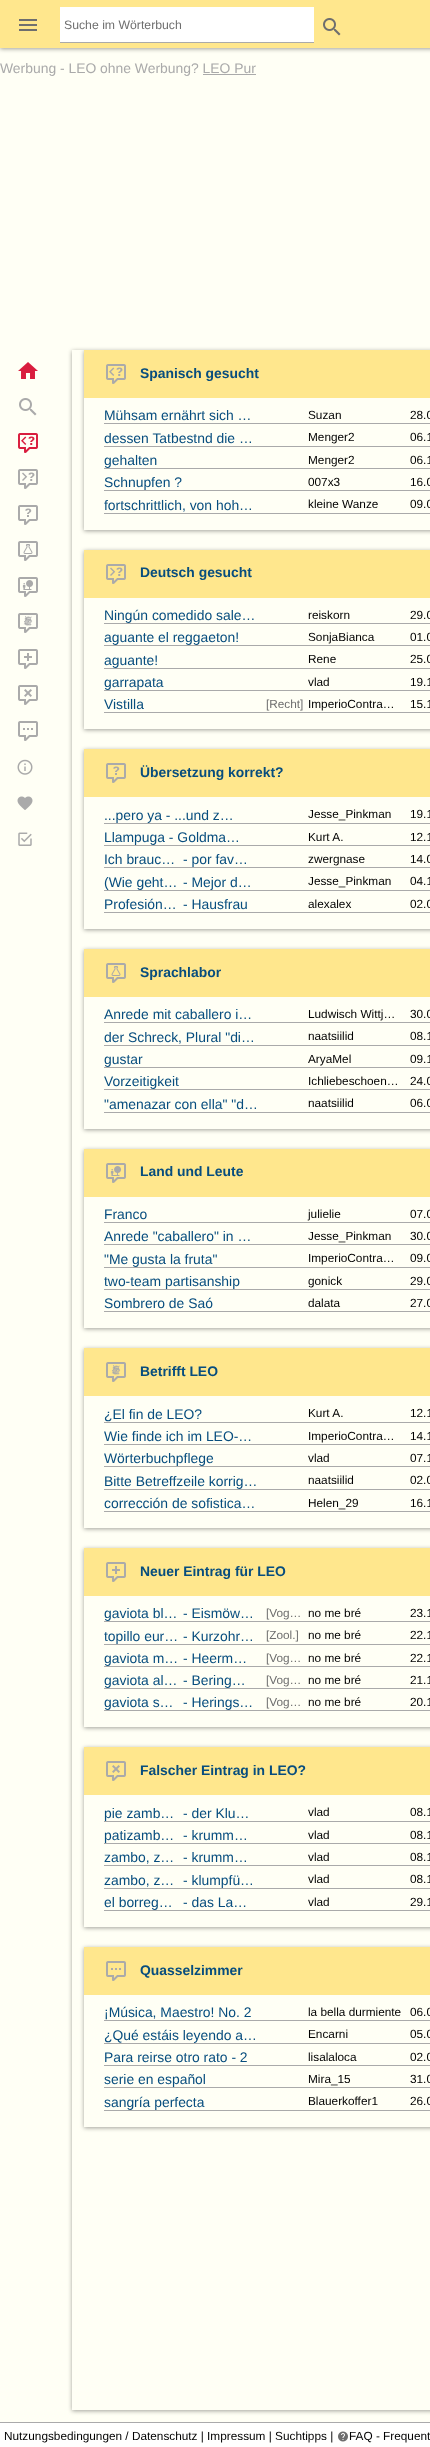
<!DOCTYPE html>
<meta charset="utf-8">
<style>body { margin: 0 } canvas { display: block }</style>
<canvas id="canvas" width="430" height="2447"></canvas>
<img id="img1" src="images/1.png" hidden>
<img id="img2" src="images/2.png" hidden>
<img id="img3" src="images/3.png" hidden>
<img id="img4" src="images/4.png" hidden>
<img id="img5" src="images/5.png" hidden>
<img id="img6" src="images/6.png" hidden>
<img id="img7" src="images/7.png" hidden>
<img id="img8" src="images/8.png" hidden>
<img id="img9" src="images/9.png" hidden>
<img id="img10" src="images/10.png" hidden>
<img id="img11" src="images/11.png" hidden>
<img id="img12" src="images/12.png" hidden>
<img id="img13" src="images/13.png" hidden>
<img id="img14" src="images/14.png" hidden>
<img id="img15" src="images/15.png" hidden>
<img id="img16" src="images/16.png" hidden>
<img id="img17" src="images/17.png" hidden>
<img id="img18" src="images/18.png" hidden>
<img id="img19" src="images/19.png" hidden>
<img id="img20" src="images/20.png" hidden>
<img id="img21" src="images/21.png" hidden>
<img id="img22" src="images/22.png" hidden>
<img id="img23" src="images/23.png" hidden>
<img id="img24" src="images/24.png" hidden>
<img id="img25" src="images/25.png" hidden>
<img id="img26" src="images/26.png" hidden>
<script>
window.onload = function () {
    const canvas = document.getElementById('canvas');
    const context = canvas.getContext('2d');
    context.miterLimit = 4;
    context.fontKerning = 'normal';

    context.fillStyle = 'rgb(255, 255, 245)';
    context.fillRect(0, 0, 430, 2447);
    context.fillStyle = 'rgba(0, 0, 0, 0.37)';
    context.filter = 'blur(2px)';
    context.beginPath();
    context.rect(0, 1, 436, 48);
    context.fill();
    context.filter = 'none';
    context.fillStyle = 'rgb(255, 231, 141)';
    context.fillRect(0, 0, 430, 48);
    context.drawImage(document.getElementById('img1'), 19, 19, 18, 12);
    context.fillStyle = 'rgb(255, 255, 255)';
    context.fillRect(60, 7, 254, 35);
    context.fillStyle = 'rgb(170, 170, 170)';
    context.fillRect(60, 42, 254, 1);
    context.drawImage(document.getElementById('img2'), 323, 18, 18, 18);
    context.fillRect(203, 74, 53, 1);
    context.drawImage(document.getElementById('img3'), 18, 362, 20, 17);
    context.drawImage(document.getElementById('img4'), 19, 398, 18, 18);
    context.drawImage(document.getElementById('img5'), 18, 433, 20, 20);
    context.drawImage(document.getElementById('img6'), 18, 469, 20, 20);
    context.drawImage(document.getElementById('img7'), 18, 505, 20, 20);
    context.drawImage(document.getElementById('img8'), 18, 541, 20, 20);
    context.drawImage(document.getElementById('img9'), 18, 577, 20, 20);
    context.drawImage(document.getElementById('img10'), 18, 613, 20, 20);
    context.drawImage(document.getElementById('img11'), 18, 649, 20, 20);
    context.drawImage(document.getElementById('img12'), 18, 685, 20, 20);
    context.drawImage(document.getElementById('img13'), 18, 721, 20, 20);
    context.drawImage(document.getElementById('img14'), 17, 759, 16, 16);
    context.drawImage(document.getElementById('img15'), 17, 796, 16, 14);
    context.drawImage(document.getElementById('img16'), 18, 832, 14, 14);
    context.save();
    context.beginPath();
    context.moveTo(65, 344);
    context.lineTo(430, 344);
    context.lineTo(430, 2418);
    context.lineTo(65, 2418);
    context.closePath();
    context.moveTo(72, 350);
    context.lineTo(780, 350);
    context.lineTo(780, 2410);
    context.lineTo(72, 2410);
    context.closePath();
    context.clip('evenodd');
    context.fillStyle = 'rgba(0, 0, 0, 0.37)';
    context.filter = 'blur(2px)';
    context.beginPath();
    context.rect(72, 351, 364, 2060);
    context.fill();
    context.filter = 'none';
    context.restore();
    context.save();
    context.beginPath();
    context.rect(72, 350, 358, 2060);
    context.clip();
    context.beginPath();
    context.moveTo(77, 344);
    context.lineTo(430, 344);
    context.lineTo(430, 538);
    context.lineTo(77, 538);
    context.closePath();
    context.moveTo(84, 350);
    context.lineTo(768, 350);
    context.lineTo(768, 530);
    context.lineTo(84, 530);
    context.closePath();
    context.clip('evenodd');
    context.fillStyle = 'rgba(0, 0, 0, 0.37)';
    context.filter = 'blur(2px)';
    context.beginPath();
    context.rect(84, 351, 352, 180);
    context.fill();
    context.filter = 'none';
    context.restore();
    context.fillStyle = 'rgb(255, 231, 141)';
    context.fillRect(84, 350, 346, 48);
    context.drawImage(document.getElementById('img17'), 106, 364, 20, 20);
    context.fillStyle = 'rgb(170, 170, 170)';
    context.fillRect(104, 423, 326, 1);
    context.fillRect(104, 446, 326, 1);
    context.fillRect(104, 468, 326, 1);
    context.fillRect(104, 490, 326, 1);
    context.fillRect(104, 513, 326, 1);
    context.save();
    context.beginPath();
    context.moveTo(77, 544);
    context.lineTo(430, 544);
    context.lineTo(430, 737);
    context.lineTo(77, 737);
    context.closePath();
    context.moveTo(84, 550);
    context.lineTo(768, 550);
    context.lineTo(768, 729);
    context.lineTo(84, 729);
    context.closePath();
    context.clip('evenodd');
    context.fillStyle = 'rgba(0, 0, 0, 0.37)';
    context.filter = 'blur(2px)';
    context.beginPath();
    context.rect(84, 551, 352, 179);
    context.fill();
    context.filter = 'none';
    context.restore();
    context.fillStyle = 'rgb(255, 231, 141)';
    context.fillRect(84, 550, 346, 48);
    context.drawImage(document.getElementById('img18'), 106, 564, 20, 20);
    context.fillStyle = 'rgb(170, 170, 170)';
    context.fillRect(104, 623, 326, 1);
    context.fillRect(104, 645, 326, 1);
    context.fillRect(104, 668, 326, 1);
    context.fillRect(104, 690, 326, 1);
    context.fillRect(104, 712, 326, 1);
    context.save();
    context.beginPath();
    context.moveTo(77, 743);
    context.lineTo(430, 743);
    context.lineTo(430, 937);
    context.lineTo(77, 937);
    context.closePath();
    context.moveTo(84, 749);
    context.lineTo(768, 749);
    context.lineTo(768, 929);
    context.lineTo(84, 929);
    context.closePath();
    context.clip('evenodd');
    context.fillStyle = 'rgba(0, 0, 0, 0.37)';
    context.filter = 'blur(2px)';
    context.beginPath();
    context.rect(84, 750, 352, 180);
    context.fill();
    context.filter = 'none';
    context.restore();
    context.fillStyle = 'rgb(255, 231, 141)';
    context.fillRect(84, 749, 346, 48);
    context.drawImage(document.getElementById('img19'), 106, 763, 20, 20);
    context.fillStyle = 'rgb(170, 170, 170)';
    context.fillRect(104, 823, 326, 1);
    context.fillRect(104, 845, 326, 1);
    context.fillRect(104, 867, 326, 1);
    context.fillRect(104, 890, 326, 1);
    context.fillRect(104, 912, 326, 1);
    context.save();
    context.beginPath();
    context.moveTo(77, 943);
    context.lineTo(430, 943);
    context.lineTo(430, 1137);
    context.lineTo(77, 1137);
    context.closePath();
    context.moveTo(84, 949);
    context.lineTo(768, 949);
    context.lineTo(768, 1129);
    context.lineTo(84, 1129);
    context.closePath();
    context.clip('evenodd');
    context.fillStyle = 'rgba(0, 0, 0, 0.37)';
    context.filter = 'blur(2px)';
    context.beginPath();
    context.rect(84, 950, 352, 180);
    context.fill();
    context.filter = 'none';
    context.restore();
    context.fillStyle = 'rgb(255, 231, 141)';
    context.fillRect(84, 949, 346, 48);
    context.drawImage(document.getElementById('img20'), 106, 963, 20, 20);
    context.fillStyle = 'rgb(170, 170, 170)';
    context.fillRect(104, 1022, 326, 1);
    context.fillRect(104, 1045, 326, 1);
    context.fillRect(104, 1067, 326, 1);
    context.fillRect(104, 1089, 326, 1);
    context.fillRect(104, 1112, 326, 1);
    context.save();
    context.beginPath();
    context.moveTo(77, 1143);
    context.lineTo(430, 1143);
    context.lineTo(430, 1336);
    context.lineTo(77, 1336);
    context.closePath();
    context.moveTo(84, 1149);
    context.lineTo(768, 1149);
    context.lineTo(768, 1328);
    context.lineTo(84, 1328);
    context.closePath();
    context.clip('evenodd');
    context.fillStyle = 'rgba(0, 0, 0, 0.37)';
    context.filter = 'blur(2px)';
    context.beginPath();
    context.rect(84, 1150, 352, 179);
    context.fill();
    context.filter = 'none';
    context.restore();
    context.fillStyle = 'rgb(255, 231, 141)';
    context.fillRect(84, 1149, 346, 48);
    context.drawImage(document.getElementById('img21'), 106, 1163, 20, 20);
    context.fillStyle = 'rgb(170, 170, 170)';
    context.fillRect(104, 1222, 326, 1);
    context.fillRect(104, 1244, 326, 1);
    context.fillRect(104, 1267, 326, 1);
    context.fillRect(104, 1289, 326, 1);
    context.fillRect(104, 1311, 326, 1);
    context.save();
    context.beginPath();
    context.moveTo(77, 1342);
    context.lineTo(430, 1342);
    context.lineTo(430, 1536);
    context.lineTo(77, 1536);
    context.closePath();
    context.moveTo(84, 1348);
    context.lineTo(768, 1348);
    context.lineTo(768, 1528);
    context.lineTo(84, 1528);
    context.closePath();
    context.clip('evenodd');
    context.fillStyle = 'rgba(0, 0, 0, 0.37)';
    context.filter = 'blur(2px)';
    context.beginPath();
    context.rect(84, 1349, 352, 180);
    context.fill();
    context.filter = 'none';
    context.restore();
    context.fillStyle = 'rgb(255, 231, 141)';
    context.fillRect(84, 1348, 346, 48);
    context.drawImage(document.getElementById('img22'), 106, 1362, 20, 20);
    context.fillStyle = 'rgb(170, 170, 170)';
    context.fillRect(104, 1422, 326, 1);
    context.fillRect(104, 1444, 326, 1);
    context.fillRect(104, 1466, 326, 1);
    context.fillRect(104, 1489, 326, 1);
    context.fillRect(104, 1511, 326, 1);
    context.save();
    context.beginPath();
    context.moveTo(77, 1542);
    context.lineTo(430, 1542);
    context.lineTo(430, 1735);
    context.lineTo(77, 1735);
    context.closePath();
    context.moveTo(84, 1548);
    context.lineTo(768, 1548);
    context.lineTo(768, 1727);
    context.lineTo(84, 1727);
    context.closePath();
    context.clip('evenodd');
    context.fillStyle = 'rgba(0, 0, 0, 0.37)';
    context.filter = 'blur(2px)';
    context.beginPath();
    context.rect(84, 1549, 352, 179);
    context.fill();
    context.filter = 'none';
    context.restore();
    context.fillStyle = 'rgb(255, 231, 141)';
    context.fillRect(84, 1548, 346, 48);
    context.drawImage(document.getElementById('img23'), 106, 1562, 20, 20);
    context.fillStyle = 'rgb(170, 170, 170)';
    context.fillRect(104, 1621, 326, 1);
    context.fillRect(104, 1644, 326, 1);
    context.fillRect(104, 1666, 326, 1);
    context.fillRect(104, 1688, 326, 1);
    context.fillRect(104, 1710, 326, 1);
    context.save();
    context.beginPath();
    context.moveTo(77, 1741);
    context.lineTo(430, 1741);
    context.lineTo(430, 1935);
    context.lineTo(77, 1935);
    context.closePath();
    context.moveTo(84, 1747);
    context.lineTo(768, 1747);
    context.lineTo(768, 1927);
    context.lineTo(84, 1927);
    context.closePath();
    context.clip('evenodd');
    context.fillStyle = 'rgba(0, 0, 0, 0.37)';
    context.filter = 'blur(2px)';
    context.beginPath();
    context.rect(84, 1748, 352, 180);
    context.fill();
    context.filter = 'none';
    context.restore();
    context.fillStyle = 'rgb(255, 231, 141)';
    context.fillRect(84, 1747, 346, 48);
    context.drawImage(document.getElementById('img24'), 106, 1761, 20, 20);
    context.fillStyle = 'rgb(170, 170, 170)';
    context.fillRect(104, 1821, 326, 1);
    context.fillRect(104, 1843, 326, 1);
    context.fillRect(104, 1865, 326, 1);
    context.fillRect(104, 1888, 326, 1);
    context.fillRect(104, 1910, 326, 1);
    context.save();
    context.beginPath();
    context.moveTo(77, 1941);
    context.lineTo(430, 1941);
    context.lineTo(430, 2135);
    context.lineTo(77, 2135);
    context.closePath();
    context.moveTo(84, 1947);
    context.lineTo(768, 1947);
    context.lineTo(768, 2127);
    context.lineTo(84, 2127);
    context.closePath();
    context.clip('evenodd');
    context.fillStyle = 'rgba(0, 0, 0, 0.37)';
    context.filter = 'blur(2px)';
    context.beginPath();
    context.rect(84, 1948, 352, 180);
    context.fill();
    context.filter = 'none';
    context.restore();
    context.fillStyle = 'rgb(255, 231, 141)';
    context.fillRect(84, 1947, 346, 48);
    context.drawImage(document.getElementById('img25'), 106, 1961, 20, 20);
    context.fillStyle = 'rgb(170, 170, 170)';
    context.fillRect(104, 2020, 326, 1);
    context.fillRect(104, 2043, 326, 1);
    context.fillRect(104, 2065, 326, 1);
    context.fillRect(104, 2087, 326, 1);
    context.fillRect(104, 2110, 326, 1);
    context.fillStyle = 'rgb(255, 255, 254)';
    context.fillRect(0, 2423, 430, 24);
    context.fillStyle = 'rgb(170, 170, 170)';
    context.fillRect(0, 2422, 430, 1);
    context.drawImage(document.getElementById('img26'), 338, 2431, 10, 11);
    context.font = '12.25px Liberation Sans';
    context.fillStyle = 'rgb(110, 110, 110)';
    context.fillText('Suche im Wörterbuch', 64, 29);
    context.font = '13.9px Liberation Sans';
    context.fillStyle = 'rgb(170, 170, 170)';
    context.fillText('Werbung - LEO ohne Werbung? LEO Pur', 0, 73);
    context.font = 'bold 13.9px Liberation Sans';
    context.fillStyle = 'rgb(7, 77, 126)';
    context.fillText('Spanisch gesucht', 140, 378);
    context.font = '13.9px Liberation Sans';
    context.fillText('Mühsam ernährt sich …', 104, 420);
    context.font = '11.8px Liberation Sans';
    context.fillStyle = 'rgb(0, 0, 0)';
    context.fillText('Suzan', 308, 419);
    context.fillText('28.0', 410, 419);
    context.font = '13.9px Liberation Sans';
    context.fillStyle = 'rgb(7, 77, 126)';
    context.fillText('dessen Tatbestnd die …', 104, 443);
    context.font = '11.8px Liberation Sans';
    context.fillStyle = 'rgb(0, 0, 0)';
    context.fillText('Menger2', 308, 441);
    context.fillText('06.1', 410, 441);
    context.font = '13.9px Liberation Sans';
    context.fillStyle = 'rgb(7, 77, 126)';
    context.fillText('gehalten', 104, 465);
    context.font = '11.8px Liberation Sans';
    context.fillStyle = 'rgb(0, 0, 0)';
    context.fillText('Menger2', 308, 464);
    context.fillText('06.1', 410, 464);
    context.font = '13.9px Liberation Sans';
    context.fillStyle = 'rgb(7, 77, 126)';
    context.fillText('Schnupfen ?', 104, 487);
    context.font = '11.8px Liberation Sans';
    context.fillStyle = 'rgb(0, 0, 0)';
    context.fillText('007x3', 308, 486);
    context.fillText('16.0', 410, 486);
    context.font = '13.9px Liberation Sans';
    context.fillStyle = 'rgb(7, 77, 126)';
    context.fillText('fortschrittlich, von hoh…', 104, 510);
    context.font = '11.8px Liberation Sans';
    context.fillStyle = 'rgb(0, 0, 0)';
    context.fillText('kleine Wanze', 308, 508);
    context.fillText('09.0', 410, 508);
    context.font = 'bold 13.9px Liberation Sans';
    context.fillStyle = 'rgb(7, 77, 126)';
    context.fillText('Deutsch gesucht', 140, 577);
    context.font = '13.9px Liberation Sans';
    context.fillText('Ningún comedido sale…', 104, 620);
    context.font = '11.8px Liberation Sans';
    context.fillStyle = 'rgb(0, 0, 0)';
    context.fillText('reiskorn', 308, 619);
    context.fillText('29.0', 410, 619);
    context.font = '13.9px Liberation Sans';
    context.fillStyle = 'rgb(7, 77, 126)';
    context.fillText('aguante el reggaeton!', 104, 642);
    context.font = '11.8px Liberation Sans';
    context.fillStyle = 'rgb(0, 0, 0)';
    context.fillText('SonjaBianca', 308, 641);
    context.fillText('01.0', 410, 641);
    context.font = '13.9px Liberation Sans';
    context.fillStyle = 'rgb(7, 77, 126)';
    context.fillText('aguante!', 104, 665);
    context.font = '11.8px Liberation Sans';
    context.fillStyle = 'rgb(0, 0, 0)';
    context.fillText('Rene', 308, 663);
    context.fillText('25.0', 410, 663);
    context.font = '13.9px Liberation Sans';
    context.fillStyle = 'rgb(7, 77, 126)';
    context.fillText('garrapata', 104, 687);
    context.font = '11.8px Liberation Sans';
    context.fillStyle = 'rgb(0, 0, 0)';
    context.fillText('vlad', 308, 686);
    context.fillText('19.1', 410, 686);
    context.font = '13.9px Liberation Sans';
    context.fillStyle = 'rgb(7, 77, 126)';
    context.fillText('Vistilla', 104, 709);
    context.font = '11.8px Liberation Sans';
    context.fillStyle = 'rgb(110, 110, 110)';
    context.fillText('[Recht]', 266, 708);
    context.fillStyle = 'rgb(0, 0, 0)';
    context.fillText('ImperioContra…', 308, 708);
    context.fillText('15.1', 410, 708);
    context.font = 'bold 13.9px Liberation Sans';
    context.fillStyle = 'rgb(7, 77, 126)';
    context.fillText('Übersetzung korrekt?', 140, 777);
    context.font = '13.9px Liberation Sans';
    context.fillText('...pero ya - ...und z…', 104, 820);
    context.font = '11.8px Liberation Sans';
    context.fillStyle = 'rgb(0, 0, 0)';
    context.fillText('Jesse_Pinkman', 308, 818);
    context.fillText('19.1', 410, 818);
    context.font = '13.9px Liberation Sans';
    context.fillStyle = 'rgb(7, 77, 126)';
    context.fillText('Llampuga - Goldma…', 104, 842);
    context.font = '11.8px Liberation Sans';
    context.fillStyle = 'rgb(0, 0, 0)';
    context.fillText('Kurt A.', 308, 841);
    context.fillText('12.1', 410, 841);
    context.font = '13.9px Liberation Sans';
    context.fillStyle = 'rgb(7, 77, 126)';
    context.fillText('Ich brauc…', 104, 864);
    context.fillText('- por fav…', 183, 864);
    context.font = '11.8px Liberation Sans';
    context.fillStyle = 'rgb(0, 0, 0)';
    context.fillText('zwergnase', 308, 863);
    context.fillText('14.0', 410, 863);
    context.font = '13.9px Liberation Sans';
    context.fillStyle = 'rgb(7, 77, 126)';
    context.fillText('(Wie geht…', 104, 887);
    context.fillText('- Mejor d…', 183, 887);
    context.font = '11.8px Liberation Sans';
    context.fillStyle = 'rgb(0, 0, 0)';
    context.fillText('Jesse_Pinkman', 308, 885);
    context.fillText('04.1', 410, 885);
    context.font = '13.9px Liberation Sans';
    context.fillStyle = 'rgb(7, 77, 126)';
    context.fillText('Profesión…', 104, 909);
    context.fillText('- Hausfrau', 183, 909);
    context.font = '11.8px Liberation Sans';
    context.fillStyle = 'rgb(0, 0, 0)';
    context.fillText('alexalex', 308, 908);
    context.fillText('02.0', 410, 908);
    context.font = 'bold 13.9px Liberation Sans';
    context.fillStyle = 'rgb(7, 77, 126)';
    context.fillText('Sprachlabor', 140, 977);
    context.font = '13.9px Liberation Sans';
    context.fillText('Anrede mit caballero i…', 104, 1019);
    context.font = '11.8px Liberation Sans';
    context.fillStyle = 'rgb(0, 0, 0)';
    context.fillText('Ludwisch Wittj…', 308, 1018);
    context.fillText('30.0', 410, 1018);
    context.font = '13.9px Liberation Sans';
    context.fillStyle = 'rgb(7, 77, 126)';
    context.fillText('der Schreck, Plural "di…', 104, 1042);
    context.font = '11.8px Liberation Sans';
    context.fillStyle = 'rgb(0, 0, 0)';
    context.fillText('naatsiilid', 308, 1040);
    context.fillText('08.1', 410, 1040);
    context.font = '13.9px Liberation Sans';
    context.fillStyle = 'rgb(7, 77, 126)';
    context.fillText('gustar', 104, 1064);
    context.font = '11.8px Liberation Sans';
    context.fillStyle = 'rgb(0, 0, 0)';
    context.fillText('AryaMel', 308, 1063);
    context.fillText('09.1', 410, 1063);
    context.font = '13.9px Liberation Sans';
    context.fillStyle = 'rgb(7, 77, 126)';
    context.fillText('Vorzeitigkeit', 104, 1086);
    context.font = '11.8px Liberation Sans';
    context.fillStyle = 'rgb(0, 0, 0)';
    context.fillText('Ichliebeschoen…', 308, 1085);
    context.fillText('24.0', 410, 1085);
    context.font = '13.9px Liberation Sans';
    context.fillStyle = 'rgb(7, 77, 126)';
    context.fillText('"amenazar con ella" "d…', 104, 1109);
    context.font = '11.8px Liberation Sans';
    context.fillStyle = 'rgb(0, 0, 0)';
    context.fillText('naatsiilid', 308, 1107);
    context.fillText('06.0', 410, 1107);
    context.font = 'bold 13.9px Liberation Sans';
    context.fillStyle = 'rgb(7, 77, 126)';
    context.fillText('Land und Leute', 140, 1176);
    context.font = '13.9px Liberation Sans';
    context.fillText('Franco', 104, 1219);
    context.font = '11.8px Liberation Sans';
    context.fillStyle = 'rgb(0, 0, 0)';
    context.fillText('julielie', 308, 1218);
    context.fillText('07.0', 410, 1218);
    context.font = '13.9px Liberation Sans';
    context.fillStyle = 'rgb(7, 77, 126)';
    context.fillText('Anrede "caballero" in …', 104, 1241);
    context.font = '11.8px Liberation Sans';
    context.fillStyle = 'rgb(0, 0, 0)';
    context.fillText('Jesse_Pinkman', 308, 1240);
    context.fillText('30.0', 410, 1240);
    context.font = '13.9px Liberation Sans';
    context.fillStyle = 'rgb(7, 77, 126)';
    context.fillText('"Me gusta la fruta"', 104, 1264);
    context.font = '11.8px Liberation Sans';
    context.fillStyle = 'rgb(0, 0, 0)';
    context.fillText('ImperioContra…', 308, 1262);
    context.fillText('09.0', 410, 1262);
    context.font = '13.9px Liberation Sans';
    context.fillStyle = 'rgb(7, 77, 126)';
    context.fillText('two-team partisanship', 104, 1286);
    context.font = '11.8px Liberation Sans';
    context.fillStyle = 'rgb(0, 0, 0)';
    context.fillText('gonick', 308, 1285);
    context.fillText('29.0', 410, 1285);
    context.font = '13.9px Liberation Sans';
    context.fillStyle = 'rgb(7, 77, 126)';
    context.fillText('Sombrero de Saó', 104, 1308);
    context.font = '11.8px Liberation Sans';
    context.fillStyle = 'rgb(0, 0, 0)';
    context.fillText('dalata', 308, 1307);
    context.fillText('27.0', 410, 1307);
    context.font = 'bold 13.9px Liberation Sans';
    context.fillStyle = 'rgb(7, 77, 126)';
    context.fillText('Betrifft LEO', 140, 1376);
    context.font = '13.9px Liberation Sans';
    context.fillText('¿El fin de LEO?', 104, 1419);
    context.font = '11.8px Liberation Sans';
    context.fillStyle = 'rgb(0, 0, 0)';
    context.fillText('Kurt A.', 308, 1417);
    context.fillText('12.1', 410, 1417);
    context.font = '13.9px Liberation Sans';
    context.fillStyle = 'rgb(7, 77, 126)';
    context.fillText('Wie finde ich im LEO-…', 104, 1441);
    context.font = '11.8px Liberation Sans';
    context.fillStyle = 'rgb(0, 0, 0)';
    context.fillText('ImperioContra…', 308, 1440);
    context.fillText('14.1', 410, 1440);
    context.font = '13.9px Liberation Sans';
    context.fillStyle = 'rgb(7, 77, 126)';
    context.fillText('Wörterbuchpflege', 104, 1463);
    context.font = '11.8px Liberation Sans';
    context.fillStyle = 'rgb(0, 0, 0)';
    context.fillText('vlad', 308, 1462);
    context.fillText('07.1', 410, 1462);
    context.font = '13.9px Liberation Sans';
    context.fillStyle = 'rgb(7, 77, 126)';
    context.fillText('Bitte Betreffzeile korrig…', 104, 1486);
    context.font = '11.8px Liberation Sans';
    context.fillStyle = 'rgb(0, 0, 0)';
    context.fillText('naatsiilid', 308, 1484);
    context.fillText('02.0', 410, 1484);
    context.font = '13.9px Liberation Sans';
    context.fillStyle = 'rgb(7, 77, 126)';
    context.fillText('corrección de sofistica…', 104, 1508);
    context.font = '11.8px Liberation Sans';
    context.fillStyle = 'rgb(0, 0, 0)';
    context.fillText('Helen_29', 308, 1507);
    context.fillText('16.1', 410, 1507);
    context.font = 'bold 13.9px Liberation Sans';
    context.fillStyle = 'rgb(7, 77, 126)';
    context.fillText('Neuer Eintrag für LEO', 140, 1576);
    context.font = '13.9px Liberation Sans';
    context.fillText('gaviota bl…', 104, 1618);
    context.fillText('- Eismöw…', 183, 1618);
    context.font = '11.8px Liberation Sans';
    context.fillStyle = 'rgb(110, 110, 110)';
    context.fillText('[Vog…', 266, 1617);
    context.fillStyle = 'rgb(0, 0, 0)';
    context.fillText('no me bré', 308, 1617);
    context.fillText('23.1', 410, 1617);
    context.font = '13.9px Liberation Sans';
    context.fillStyle = 'rgb(7, 77, 126)';
    context.fillText('topillo eur…', 104, 1641);
    context.fillText('- Kurzohr…', 183, 1641);
    context.font = '11.8px Liberation Sans';
    context.fillStyle = 'rgb(110, 110, 110)';
    context.fillText('[Zool.]', 266, 1639);
    context.fillStyle = 'rgb(0, 0, 0)';
    context.fillText('no me bré', 308, 1639);
    context.fillText('22.1', 410, 1639);
    context.font = '13.9px Liberation Sans';
    context.fillStyle = 'rgb(7, 77, 126)';
    context.fillText('gaviota m…', 104, 1663);
    context.fillText('- Heerm…', 183, 1663);
    context.font = '11.8px Liberation Sans';
    context.fillStyle = 'rgb(110, 110, 110)';
    context.fillText('[Vog…', 266, 1662);
    context.fillStyle = 'rgb(0, 0, 0)';
    context.fillText('no me bré', 308, 1662);
    context.fillText('22.1', 410, 1662);
    context.font = '13.9px Liberation Sans';
    context.fillStyle = 'rgb(7, 77, 126)';
    context.fillText('gaviota al…', 104, 1685);
    context.fillText('- Bering…', 183, 1685);
    context.font = '11.8px Liberation Sans';
    context.fillStyle = 'rgb(110, 110, 110)';
    context.fillText('[Vog…', 266, 1684);
    context.fillStyle = 'rgb(0, 0, 0)';
    context.fillText('no me bré', 308, 1684);
    context.fillText('21.1', 410, 1684);
    context.font = '13.9px Liberation Sans';
    context.fillStyle = 'rgb(7, 77, 126)';
    context.fillText('gaviota s…', 104, 1707);
    context.fillText('- Herings…', 183, 1707);
    context.font = '11.8px Liberation Sans';
    context.fillStyle = 'rgb(110, 110, 110)';
    context.fillText('[Vog…', 266, 1706);
    context.fillStyle = 'rgb(0, 0, 0)';
    context.fillText('no me bré', 308, 1706);
    context.fillText('20.1', 410, 1706);
    context.font = 'bold 13.9px Liberation Sans';
    context.fillStyle = 'rgb(7, 77, 126)';
    context.fillText('Falscher Eintrag in LEO?', 140, 1775);
    context.font = '13.9px Liberation Sans';
    context.fillText('pie zamb…', 104, 1818);
    context.fillText('- der Klu…', 183, 1818);
    context.font = '11.8px Liberation Sans';
    context.fillStyle = 'rgb(0, 0, 0)';
    context.fillText('vlad', 308, 1816);
    context.fillText('08.1', 410, 1816);
    context.font = '13.9px Liberation Sans';
    context.fillStyle = 'rgb(7, 77, 126)';
    context.fillText('patizamb…', 104, 1840);
    context.fillText('- krumm…', 183, 1840);
    context.font = '11.8px Liberation Sans';
    context.fillStyle = 'rgb(0, 0, 0)';
    context.fillText('vlad', 308, 1839);
    context.fillText('08.1', 410, 1839);
    context.font = '13.9px Liberation Sans';
    context.fillStyle = 'rgb(7, 77, 126)';
    context.fillText('zambo, z…', 104, 1862);
    context.fillText('- krumm…', 183, 1862);
    context.font = '11.8px Liberation Sans';
    context.fillStyle = 'rgb(0, 0, 0)';
    context.fillText('vlad', 308, 1861);
    context.fillText('08.1', 410, 1861);
    context.font = '13.9px Liberation Sans';
    context.fillStyle = 'rgb(7, 77, 126)';
    context.fillText('zambo, z…', 104, 1885);
    context.fillText('- klumpfü…', 183, 1885);
    context.font = '11.8px Liberation Sans';
    context.fillStyle = 'rgb(0, 0, 0)';
    context.fillText('vlad', 308, 1883);
    context.fillText('08.1', 410, 1883);
    context.font = '13.9px Liberation Sans';
    context.fillStyle = 'rgb(7, 77, 126)';
    context.fillText('el borreg…', 104, 1907);
    context.fillText('- das La…', 183, 1907);
    context.font = '11.8px Liberation Sans';
    context.fillStyle = 'rgb(0, 0, 0)';
    context.fillText('vlad', 308, 1906);
    context.fillText('29.1', 410, 1906);
    context.font = 'bold 13.9px Liberation Sans';
    context.fillStyle = 'rgb(7, 77, 126)';
    context.fillText('Quasselzimmer', 140, 1975);
    context.font = '13.9px Liberation Sans';
    context.fillText('¡Música, Maestro! No. 2', 104, 2017);
    context.font = '11.8px Liberation Sans';
    context.fillStyle = 'rgb(0, 0, 0)';
    context.fillText('la bella durmiente', 308, 2016);
    context.fillText('06.0', 410, 2016);
    context.font = '13.9px Liberation Sans';
    context.fillStyle = 'rgb(7, 77, 126)';
    context.fillText('¿Qué estáis leyendo a…', 104, 2040);
    context.font = '11.8px Liberation Sans';
    context.fillStyle = 'rgb(0, 0, 0)';
    context.fillText('Encarni', 308, 2038);
    context.fillText('05.0', 410, 2038);
    context.font = '13.9px Liberation Sans';
    context.fillStyle = 'rgb(7, 77, 126)';
    context.fillText('Para reirse otro rato - 2', 104, 2062);
    context.font = '11.8px Liberation Sans';
    context.fillStyle = 'rgb(0, 0, 0)';
    context.fillText('lisalaloca', 308, 2061);
    context.fillText('02.0', 410, 2061);
    context.font = '13.9px Liberation Sans';
    context.fillStyle = 'rgb(7, 77, 126)';
    context.fillText('serie en español', 104, 2084);
    context.font = '11.8px Liberation Sans';
    context.fillStyle = 'rgb(0, 0, 0)';
    context.fillText('Mira_15', 308, 2083);
    context.fillText('31.0', 410, 2083);
    context.font = '13.9px Liberation Sans';
    context.fillStyle = 'rgb(7, 77, 126)';
    context.fillText('sangría perfecta', 104, 2107);
    context.font = '11.8px Liberation Sans';
    context.fillStyle = 'rgb(0, 0, 0)';
    context.fillText('Blauerkoffer1', 308, 2105);
    context.fillText('26.0', 410, 2105);
    context.fillText('Nutzungsbedingungen / Datenschutz | Impressum | Suchtipps |', 4, 2440);
    context.fillText('FAQ - Frequent', 349, 2440);
};
</script>
